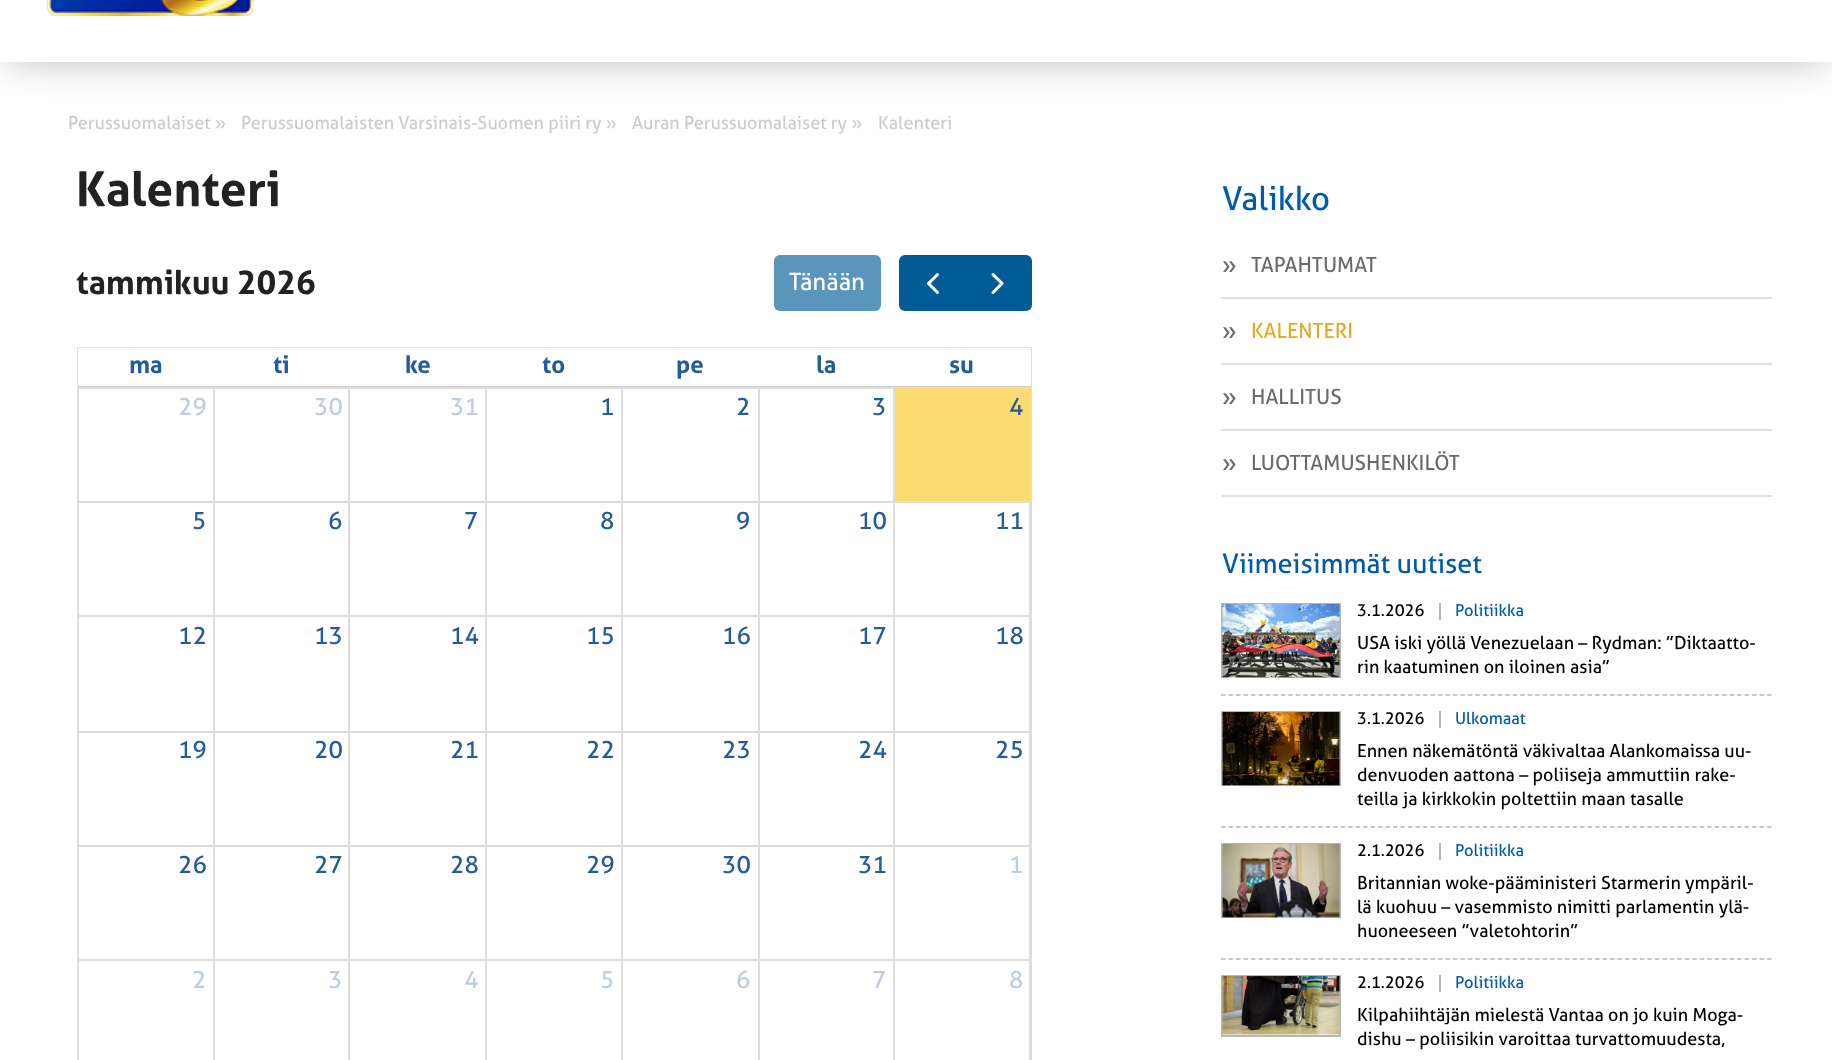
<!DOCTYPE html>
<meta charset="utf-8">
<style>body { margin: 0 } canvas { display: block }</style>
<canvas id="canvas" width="1832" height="1060"></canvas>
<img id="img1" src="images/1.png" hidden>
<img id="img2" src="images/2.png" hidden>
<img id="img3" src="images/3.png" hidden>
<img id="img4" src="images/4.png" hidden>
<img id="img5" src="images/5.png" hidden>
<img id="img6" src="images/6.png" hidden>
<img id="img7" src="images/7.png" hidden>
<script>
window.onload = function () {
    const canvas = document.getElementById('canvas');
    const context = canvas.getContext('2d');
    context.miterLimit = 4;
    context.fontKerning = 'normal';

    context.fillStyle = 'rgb(255, 255, 255)';
    context.fillRect(0, 0, 1832, 1060);
    context.fillStyle = 'rgba(0, 0, 0, 0.25)';
    context.filter = 'blur(19px)';
    context.beginPath();
    context.rect(8, -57, 1818, 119);
    context.fill();
    context.filter = 'none';
    context.fillStyle = 'rgb(255, 255, 255)';
    context.fillRect(0, 0, 1832, 62);
    context.drawImage(document.getElementById('img1'), 46, 0, 208, 16);
    context.fillStyle = 'rgb(90, 149, 187)';
    context.beginPath();
    context.roundRect(774, 255, 107, 56, 6);
    context.fill();
    context.fillStyle = 'rgb(1, 92, 150)';
    context.beginPath();
    context.roundRect(899, 255, 67, 56, [6, 0, 0, 6]);
    context.fill();
    context.drawImage(document.getElementById('img2'), 927, 273, 12, 21);
    context.beginPath();
    context.roundRect(965, 255, 67, 56, [0, 6, 6, 0]);
    context.fill();
    context.drawImage(document.getElementById('img3'), 991, 273, 13, 21);
    context.fillStyle = 'rgb(221, 221, 221)';
    context.fillRect(77, 347, 955, 1);
    context.fillRect(77, 347, 2, 713);
    context.fillStyle = 'rgb(255, 255, 255)';
    context.fillRect(78, 348, 1, 38);
    context.fillStyle = 'rgb(208, 208, 208)';
    context.fillRect(78, 386, 953, 1);
    context.fillStyle = 'rgb(221, 221, 221)';
    context.fillRect(1031, 348, 1, 712);
    context.fillRect(758, 387, 136, 2);
    context.fillRect(893, 501, 138, 2);
    context.fillRect(893, 615, 138, 2);
    context.fillRect(893, 731, 138, 2);
    context.fillRect(893, 845, 138, 2);
    context.fillRect(893, 959, 138, 2);
    context.fillRect(893, 959, 2, 101);
    context.fillRect(758, 959, 136, 2);
    context.fillRect(893, 845, 2, 115);
    context.fillRect(758, 845, 136, 2);
    context.fillRect(893, 731, 2, 115);
    context.fillRect(758, 731, 136, 2);
    context.fillRect(893, 615, 2, 117);
    context.fillRect(758, 615, 136, 2);
    context.fillRect(893, 501, 2, 116);
    context.fillRect(758, 501, 136, 2);
    context.fillRect(758, 959, 2, 101);
    context.fillRect(621, 959, 138, 2);
    context.fillRect(758, 845, 2, 115);
    context.fillRect(621, 845, 138, 2);
    context.fillRect(758, 731, 2, 115);
    context.fillRect(621, 731, 138, 2);
    context.fillRect(758, 615, 2, 117);
    context.fillRect(621, 615, 138, 2);
    context.fillRect(758, 501, 2, 116);
    context.fillRect(621, 501, 138, 2);
    context.fillRect(758, 387, 2, 116);
    context.fillRect(621, 387, 138, 2);
    context.fillRect(621, 959, 2, 101);
    context.fillRect(485, 959, 138, 2);
    context.fillRect(621, 845, 2, 115);
    context.fillRect(485, 845, 138, 2);
    context.fillRect(621, 731, 2, 115);
    context.fillRect(485, 731, 138, 2);
    context.fillRect(621, 615, 2, 117);
    context.fillRect(485, 615, 138, 2);
    context.fillRect(621, 501, 2, 116);
    context.fillRect(485, 501, 138, 2);
    context.fillRect(621, 387, 2, 116);
    context.fillRect(485, 387, 138, 2);
    context.fillRect(485, 959, 2, 101);
    context.fillRect(348, 959, 138, 2);
    context.fillRect(485, 845, 2, 115);
    context.fillRect(348, 845, 138, 2);
    context.fillRect(485, 731, 2, 115);
    context.fillRect(348, 731, 138, 2);
    context.fillRect(485, 615, 2, 117);
    context.fillRect(348, 615, 138, 2);
    context.fillRect(485, 501, 2, 116);
    context.fillRect(348, 501, 138, 2);
    context.fillRect(485, 387, 2, 116);
    context.fillRect(348, 387, 138, 2);
    context.fillRect(348, 959, 2, 101);
    context.fillRect(213, 959, 137, 2);
    context.fillRect(348, 845, 2, 115);
    context.fillRect(213, 845, 137, 2);
    context.fillRect(348, 731, 2, 115);
    context.fillRect(213, 731, 137, 2);
    context.fillRect(348, 615, 2, 117);
    context.fillRect(213, 615, 137, 2);
    context.fillRect(348, 501, 2, 116);
    context.fillRect(213, 501, 137, 2);
    context.fillRect(348, 387, 2, 116);
    context.fillRect(213, 387, 137, 2);
    context.fillRect(213, 959, 2, 101);
    context.fillRect(78, 959, 137, 2);
    context.fillRect(213, 845, 2, 115);
    context.fillRect(78, 845, 137, 2);
    context.fillRect(213, 731, 2, 115);
    context.fillRect(78, 731, 137, 2);
    context.fillRect(213, 615, 2, 117);
    context.fillRect(78, 615, 137, 2);
    context.fillRect(213, 501, 2, 116);
    context.fillRect(78, 501, 137, 2);
    context.fillRect(213, 387, 2, 116);
    context.fillRect(78, 387, 137, 2);
    context.fillRect(893, 387, 2, 116);
    context.fillStyle = 'rgb(252, 219, 112)';
    context.fillRect(895, 387, 136, 114);
    context.fillStyle = 'rgb(221, 221, 221)';
    context.fillRect(1029, 959, 2, 101);
    context.fillRect(1029, 845, 2, 115);
    context.fillRect(1029, 731, 2, 115);
    context.fillRect(1029, 615, 2, 117);
    context.fillRect(1029, 501, 2, 116);
    context.fillStyle = 'rgb(224, 224, 224)';
    context.fillRect(1221, 297, 551, 2);
    context.fillRect(1221, 363, 551, 2);
    context.fillRect(1221, 429, 551, 2);
    context.fillRect(1221, 495, 551, 2);
    context.beginPath();
    context.moveTo(1221, 695);
    context.lineTo(1771.5, 695);
    context.strokeStyle = 'rgb(183, 183, 183)';
    context.lineWidth = 1.5;
    context.setLineDash([4.5, 2.98]);
    context.stroke();
    context.save();
    context.beginPath();
    context.rect(1221, 603, 120, 75);
    context.clip();
    context.lineWidth = 2;
    context.setLineDash([]);
    context.strokeRect(1222, 604, 118, 79);
    context.restore();
    context.drawImage(document.getElementById('img4'), 1222, 604, 118, 74);
    context.fillStyle = 'rgb(183, 183, 183)';
    context.fillRect(1439, 603, 2, 17);
    context.beginPath();
    context.moveTo(1221, 827);
    context.lineTo(1771.5, 827);
    context.stroke();
    context.save();
    context.beginPath();
    context.rect(1221, 711, 120, 75);
    context.clip();
    context.lineWidth = 2;
    context.setLineDash([]);
    context.strokeRect(1222, 712, 118, 90);
    context.restore();
    context.drawImage(document.getElementById('img5'), 1222, 712, 118, 74);
    context.fillRect(1439, 711, 2, 17);
    context.beginPath();
    context.moveTo(1221, 959);
    context.lineTo(1771.5, 959);
    context.stroke();
    context.save();
    context.beginPath();
    context.rect(1221, 843, 120, 75);
    context.clip();
    context.lineWidth = 2;
    context.setLineDash([]);
    context.strokeRect(1222, 844, 118, 79);
    context.restore();
    context.drawImage(document.getElementById('img6'), 1222, 844, 118, 74);
    context.fillRect(1439, 843, 2, 17);
    context.lineWidth = 2;
    context.setLineDash([]);
    context.strokeRect(1222, 976, 118, 60);
    context.drawImage(document.getElementById('img7'), 1222, 976, 118, 59);
    context.fillRect(1439, 975, 2, 17);
    context.font = '18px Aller';
    context.fillStyle = 'rgb(204, 204, 204)';
    context.fillText('Perussuomalaiset »', 68, 129);
    context.fillText('Perussuomalaisten Varsinais-Suomen piiri ry »', 241, 129);
    context.fillText('Auran Perussuomalaiset ry »', 632, 129);
    context.fillText('Kalenteri', 878, 129);
    context.font = 'bold 48px Aller';
    context.fillStyle = 'rgb(34, 34, 34)';
    context.fillText('Kalenteri', 76, 206);
    context.font = 'bold 33px Aller';
    context.fillText('tammikuu 2026', 76, 294);
    context.font = '24px Aller';
    context.fillStyle = 'rgb(255, 255, 255)';
    context.fillText('Tänään', 789, 290);
    context.font = 'bold 24px Aller';
    context.fillStyle = 'rgb(36, 91, 155)';
    context.fillText('ma', 129, 373);
    context.fillText('ti', 273, 373);
    context.fillText('ke', 405, 373);
    context.fillText('to', 542, 373);
    context.fillText('pe', 676, 373);
    context.fillText('la', 816, 373);
    context.fillText('su', 949, 373);
    context.font = '24px Aller';
    context.fillStyle = 'rgb(189, 206, 225)';
    context.fillText('29', 178, 415);
    context.fillText('30', 314, 415);
    context.fillText('31', 450, 415);
    context.fillStyle = 'rgb(36, 91, 155)';
    context.fillText('1', 600, 415);
    context.fillText('2', 736, 415);
    context.fillText('3', 872, 415);
    context.fillText('4', 1009, 415);
    context.fillText('5', 192, 529);
    context.fillText('6', 328, 529);
    context.fillText('7', 464, 529);
    context.fillText('8', 600, 529);
    context.fillText('9', 736, 529);
    context.fillText('10', 858, 529);
    context.fillText('11', 995, 529);
    context.fillText('12', 178, 644);
    context.fillText('13', 314, 644);
    context.fillText('14', 450, 644);
    context.fillText('15', 586, 644);
    context.fillText('16', 722, 644);
    context.fillText('17', 858, 644);
    context.fillText('18', 995, 644);
    context.fillText('19', 178, 758);
    context.fillText('20', 314, 758);
    context.fillText('21', 450, 758);
    context.fillText('22', 586, 758);
    context.fillText('23', 722, 758);
    context.fillText('24', 858, 758);
    context.fillText('25', 995, 758);
    context.fillText('26', 178, 873);
    context.fillText('27', 314, 873);
    context.fillText('28', 450, 873);
    context.fillText('29', 586, 873);
    context.fillText('30', 722, 873);
    context.fillText('31', 858, 873);
    context.fillStyle = 'rgb(189, 206, 225)';
    context.fillText('1', 1009, 873);
    context.fillText('2', 192, 988);
    context.fillText('3', 328, 988);
    context.fillText('4', 464, 988);
    context.fillText('5', 600, 988);
    context.fillText('6', 736, 988);
    context.fillText('7', 872, 988);
    context.fillText('8', 1009, 988);
    context.font = '33px Aller';
    context.fillStyle = 'rgb(0, 91, 170)';
    context.fillText('Valikko', 1222, 210);
    context.font = '24px Aller';
    context.fillStyle = 'rgb(106, 106, 106)';
    context.fillText('»', 1222, 273);
    context.font = '21px Aller';
    context.fillText('TAPAHTUMAT', 1251, 272);
    context.font = '24px Aller';
    context.fillText('»', 1222, 339);
    context.font = '21px Aller';
    context.fillStyle = 'rgb(225, 171, 34)';
    context.fillText('KALENTERI', 1251, 338);
    context.font = '24px Aller';
    context.fillStyle = 'rgb(106, 106, 106)';
    context.fillText('»', 1222, 405);
    context.font = '21px Aller';
    context.fillText('HALLITUS', 1251, 404);
    context.font = '24px Aller';
    context.fillText('»', 1222, 471);
    context.font = '21px Aller';
    context.fillText('LUOTTAMUSHENKILÖT', 1251, 470);
    context.font = '27px Aller';
    context.fillStyle = 'rgb(0, 91, 170)';
    context.fillText('Viimeisimmät uutiset', 1222, 573);
    context.font = '16.5px Aller';
    context.fillStyle = 'rgb(0, 0, 0)';
    context.fillText('3.1.2026', 1357, 616);
    context.fillStyle = 'rgb(0, 91, 170)';
    context.fillText('Politiikka', 1455, 616);
    context.font = '18px Aller';
    context.fillStyle = 'rgb(0, 0, 0)';
    context.fillText('USA iski yöllä Venezuelaan – Rydman: ”Diktaatto-', 1357, 649);
    context.fillText('rin kaatuminen on iloinen asia”', 1357, 673);
    context.font = '16.5px Aller';
    context.fillText('3.1.2026', 1357, 724);
    context.fillStyle = 'rgb(0, 91, 170)';
    context.fillText('Ulkomaat', 1455, 724);
    context.font = '18px Aller';
    context.fillStyle = 'rgb(0, 0, 0)';
    context.fillText('Ennen näkemätöntä väkivaltaa Alankomaissa uu-', 1357, 757);
    context.fillText('denvuoden aattona – poliiseja ammuttiin rake-', 1357, 781);
    context.fillText('teilla ja kirkkokin poltettiin maan tasalle', 1357, 805);
    context.font = '16.5px Aller';
    context.fillText('2.1.2026', 1357, 856);
    context.fillStyle = 'rgb(0, 91, 170)';
    context.fillText('Politiikka', 1455, 856);
    context.font = '18px Aller';
    context.fillStyle = 'rgb(0, 0, 0)';
    context.fillText('Britannian woke-pääministeri Starmerin ympäril-', 1357, 889);
    context.fillText('lä kuohuu – vasemmisto nimitti parlamentin ylä-', 1357, 913);
    context.fillText('huoneeseen ”valetohtorin”', 1357, 937);
    context.font = '16.5px Aller';
    context.fillText('2.1.2026', 1357, 988);
    context.fillStyle = 'rgb(0, 91, 170)';
    context.fillText('Politiikka', 1455, 988);
    context.font = '18px Aller';
    context.fillStyle = 'rgb(0, 0, 0)';
    context.fillText('Kilpahiihtäjän mielestä Vantaa on jo kuin Moga-', 1357, 1021);
    context.fillText('dishu – poliisikin varoittaa turvattomuudesta,', 1357, 1045);
};
</script>
